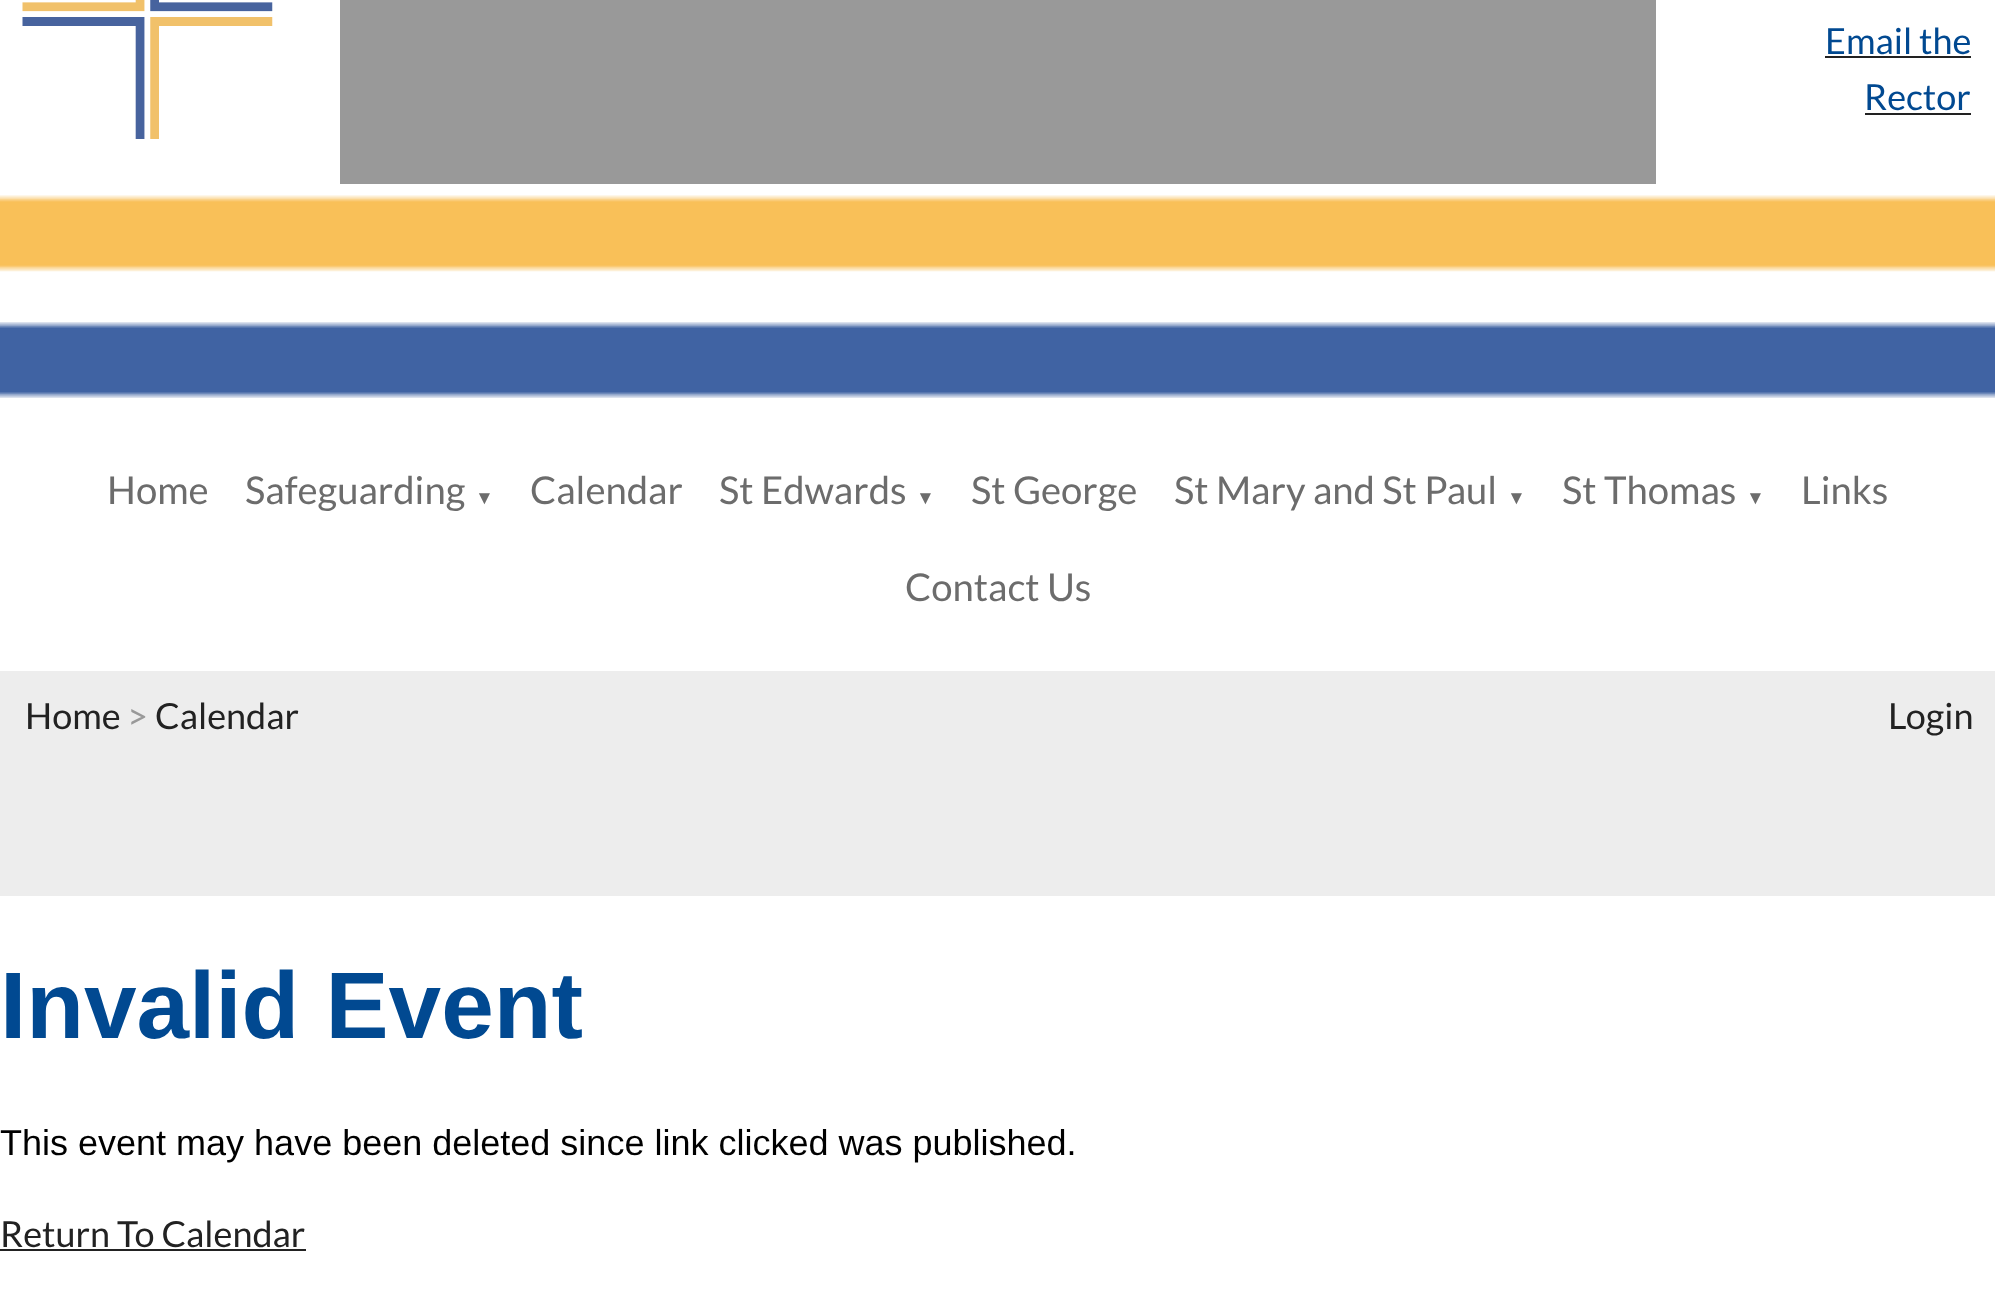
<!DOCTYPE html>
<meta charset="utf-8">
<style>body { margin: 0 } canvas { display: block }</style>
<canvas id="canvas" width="1995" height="1290"></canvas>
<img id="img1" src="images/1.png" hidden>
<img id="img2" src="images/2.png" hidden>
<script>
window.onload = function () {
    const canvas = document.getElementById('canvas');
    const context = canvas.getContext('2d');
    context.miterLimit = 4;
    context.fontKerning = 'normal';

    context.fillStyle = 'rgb(255, 255, 255)';
    context.fillRect(0, 0, 1995, 1290);
    context.drawImage(document.getElementById('img1'), 22, 0, 251, 139);
    context.fillStyle = 'rgb(153, 153, 153)';
    context.fillRect(340, 0, 1316, 184);
    context.fillStyle = 'rgb(34, 34, 34)';
    context.fillRect(1825, 56, 146, 2);
    context.fillRect(1865, 113, 106, 2);
    context.drawImage(document.getElementById('img2'), 0, 184, 1995, 214);
    context.fillStyle = 'rgb(237, 237, 237)';
    context.fillRect(0, 671, 1995, 225);
    context.fillStyle = 'rgb(34, 34, 34)';
    context.fillRect(0, 1249, 306, 2);
    context.font = '36px Lato';
    context.fillStyle = 'rgb(1, 73, 145)';
    context.fillText('Email the', 1825, 54);
    context.fillText('Rector', 1864, 110);
    context.font = '38.25px Lato';
    context.fillStyle = 'rgb(108, 108, 108)';
    context.fillText('Home', 107, 504);
    context.fillText('Safeguarding', 245, 504);
    context.font = '19px Liberation Serif';
    context.fillText('▼', 475, 504);
    context.font = '38.25px Lato';
    context.fillText('Calendar', 530, 504);
    context.fillText('St Edwards', 719, 504);
    context.font = '19px Liberation Serif';
    context.fillText('▼', 916, 504);
    context.font = '38.25px Lato';
    context.fillText('St George', 971, 504);
    context.fillText('St Mary and St Paul', 1174, 504);
    context.font = '19px Liberation Serif';
    context.fillText('▼', 1507, 504);
    context.font = '38.25px Lato';
    context.fillText('St Thomas', 1562, 504);
    context.font = '19px Liberation Serif';
    context.fillText('▼', 1746, 504);
    context.font = '38.25px Lato';
    context.fillText('Links', 1801, 504);
    context.fillText('Contact Us', 905, 601);
    context.font = '36px Lato';
    context.fillStyle = 'rgb(34, 34, 34)';
    context.fillText('Home', 25, 729);
    context.fillStyle = 'rgb(153, 153, 153)';
    context.fillText('>', 127, 729);
    context.fillStyle = 'rgb(34, 34, 34)';
    context.fillText('Calendar', 155, 729);
    context.fillText('Login', 1888, 729);
    context.font = 'bold 94.5px Liberation Sans';
    context.fillStyle = 'rgb(1, 73, 145)';
    context.fillText('Invalid Event', 0, 1038);
    context.font = '36px Liberation Sans';
    context.fillStyle = 'rgb(0, 0, 0)';
    context.fillText('This event may have been deleted since link clicked was published.', 0, 1155);
    context.font = '36px Lato';
    context.fillStyle = 'rgb(34, 34, 34)';
    context.fillText('Return To Calendar', 0, 1247);
};
</script>
